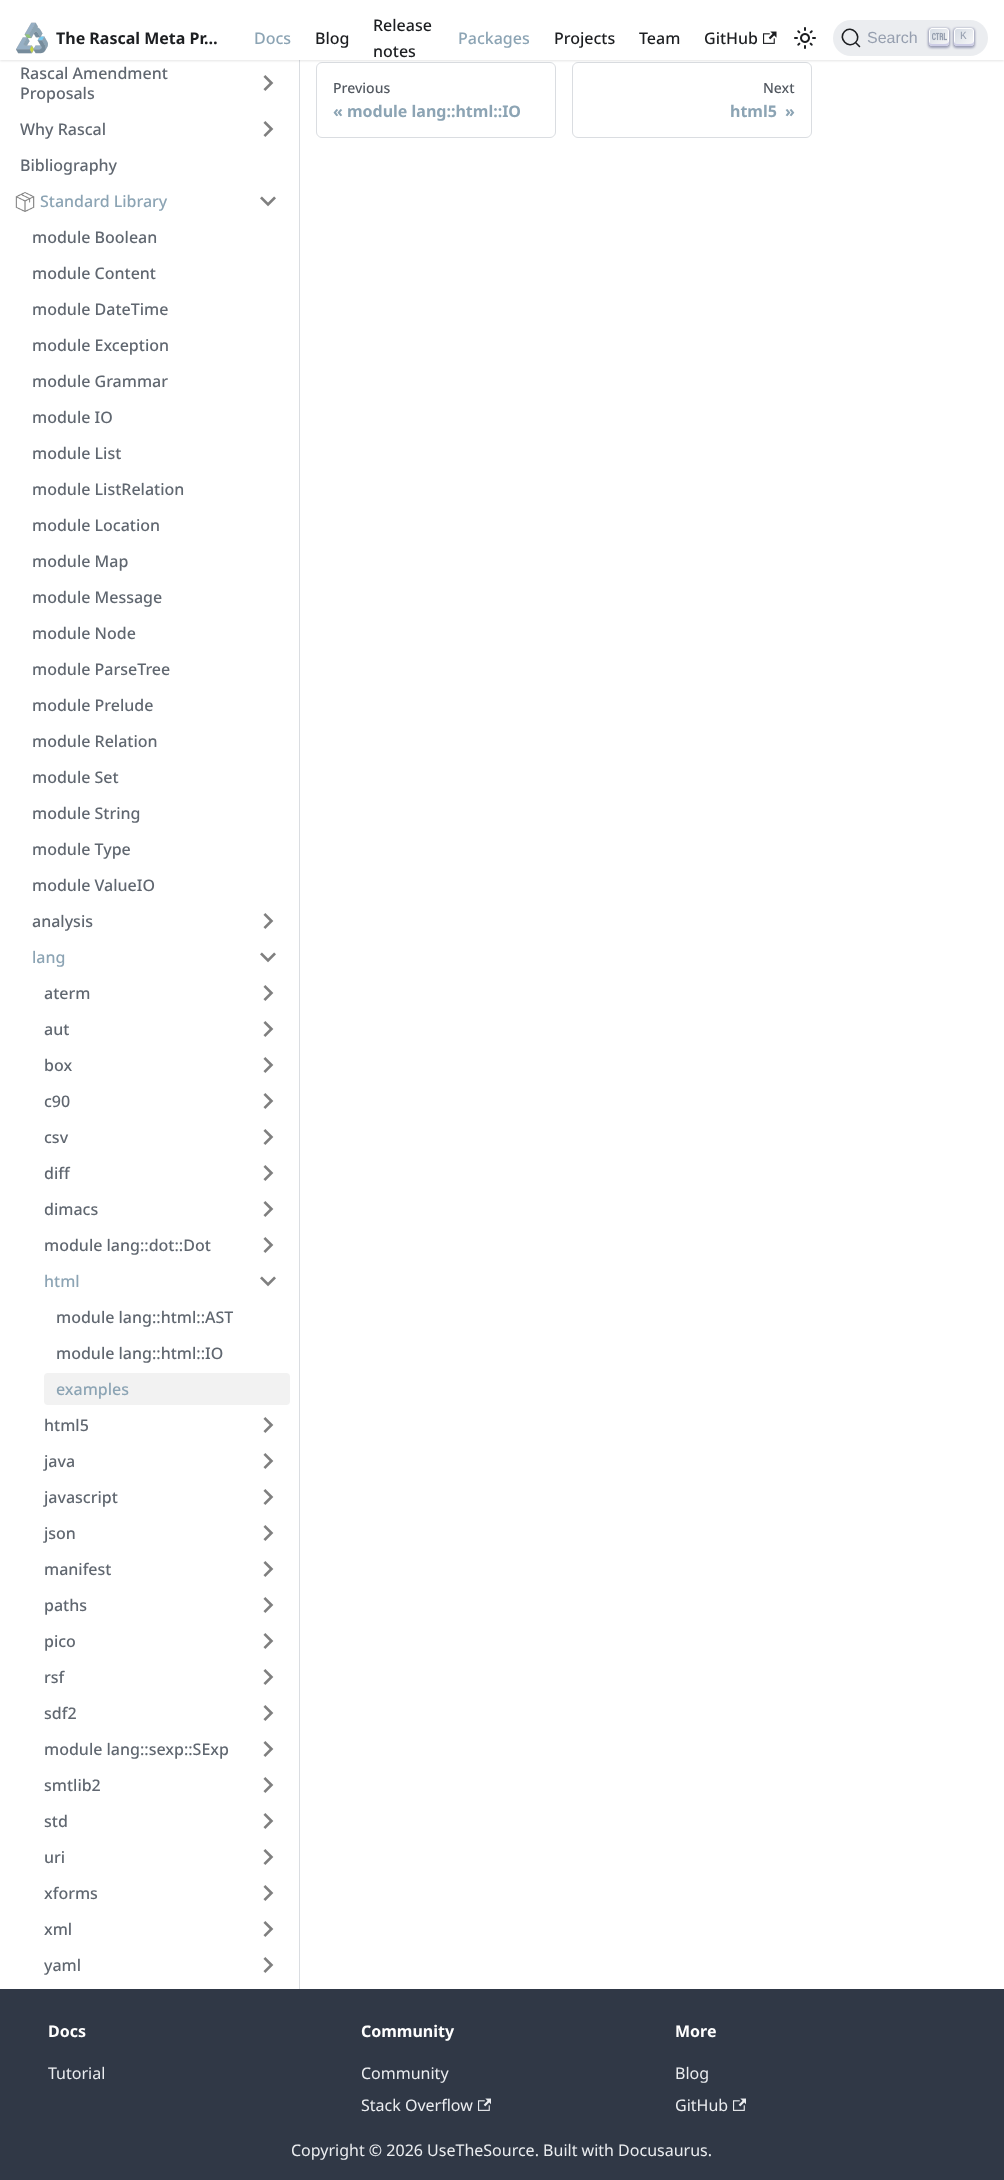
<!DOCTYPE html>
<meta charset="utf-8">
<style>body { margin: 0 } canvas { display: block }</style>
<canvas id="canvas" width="1004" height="2180"></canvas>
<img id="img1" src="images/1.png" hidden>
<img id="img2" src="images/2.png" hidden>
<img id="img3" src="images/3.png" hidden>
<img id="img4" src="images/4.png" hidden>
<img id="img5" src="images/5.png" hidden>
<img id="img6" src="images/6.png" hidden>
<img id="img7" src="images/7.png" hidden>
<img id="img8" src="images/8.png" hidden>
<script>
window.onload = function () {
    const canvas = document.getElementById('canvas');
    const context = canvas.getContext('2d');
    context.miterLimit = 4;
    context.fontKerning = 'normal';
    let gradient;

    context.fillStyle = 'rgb(255, 255, 255)';
    context.fillRect(0, 0, 1004, 2180);
    context.fillStyle = 'rgb(218, 221, 225)';
    context.fillRect(299, 60, 1, 1929);
    context.beginPath();
    context.roundRect(316.5, 62.5, 239, 75, 5.5);
    context.strokeStyle = 'rgb(218, 221, 225)';
    context.stroke();
    context.beginPath();
    context.roundRect(572.5, 62.5, 239, 75, 5.5);
    context.stroke();
    context.fillStyle = 'rgba(0, 0, 0, 0.1)';
    context.filter = 'blur(1px)';
    context.beginPath();
    context.rect(0, 1, 1004, 60);
    context.fill();
    context.filter = 'none';
    context.fillStyle = 'rgb(255, 255, 255)';
    context.fillRect(0, 0, 1004, 60);
    context.drawImage(document.getElementById('img1'), 16, 22, 32, 32);
    context.drawImage(document.getElementById('img2'), 763, 31, 14, 13);
    context.drawImage(document.getElementById('img3'), 794, 27, 22, 22);
    context.fillStyle = 'rgb(235, 237, 240)';
    context.beginPath();
    context.roundRect(833, 20, 155, 36, 18);
    context.fill();
    context.beginPath();
    context.moveTo(855.5, 42.5);
    context.lineTo(859.5, 46.5);
    context.lineTo(855.5, 42.5);
    context.bezierCurveTo(848.5, 49.5, 837.5, 38.5, 844.5, 31.5);
    context.bezierCurveTo(851.5, 24.5, 862.5, 35.5, 855.5, 42.5);
    context.closePath();
    context.strokeStyle = 'rgb(28, 30, 33)';
    context.lineWidth = 1.6;
    context.lineCap = 'round';
    context.lineJoin = 'round';
    context.stroke();
    context.fillStyle = 'rgba(30, 35, 90, 0.4)';
    context.filter = 'blur(1px)';
    context.beginPath();
    context.roundRect(928, 28, 22, 20, 4);
    context.fill();
    context.filter = 'none';
    gradient = context.createLinearGradient(930, 27, 949, 47);
    gradient.addColorStop(0, 'rgb(213, 219, 228)');
    gradient.addColorStop(1, 'rgb(248, 248, 248)');
    context.fillStyle = gradient;
    context.beginPath();
    context.roundRect(929.5, 28.5, 19, 17, 2.5);
    context.fill();
    context.strokeStyle = 'rgb(255, 255, 255)';
    context.lineWidth = 1;
    context.lineJoin = 'miter';
    context.stroke();
    context.fillStyle = 'rgb(205, 205, 230)';
    context.beginPath();
    context.moveTo(949, 40.5);
    context.bezierCurveTo(949, 43, 947.5, 44, 944, 44);
    context.lineTo(932, 44);
    context.bezierCurveTo(930, 44, 929, 42.5, 929, 40.5);
    context.lineTo(929, 43);
    context.bezierCurveTo(929, 44.5, 930.5, 46, 932, 46);
    context.lineTo(946, 46);
    context.bezierCurveTo(947.5, 46, 949, 44.5, 949, 43);
    context.closePath();
    context.fill();
    context.drawImage(document.getElementById('img4'), 932, 32, 15, 9);
    context.fillStyle = 'rgba(30, 35, 90, 0.4)';
    context.filter = 'blur(1px)';
    context.beginPath();
    context.roundRect(953, 28, 22, 20, 4);
    context.fill();
    context.filter = 'none';
    gradient = context.createLinearGradient(955, 27, 974, 47);
    gradient.addColorStop(0, 'rgb(213, 219, 228)');
    gradient.addColorStop(1, 'rgb(248, 248, 248)');
    context.fillStyle = gradient;
    context.beginPath();
    context.roundRect(954.5, 28.5, 19, 17, 2.5);
    context.fill();
    context.stroke();
    context.fillStyle = 'rgb(205, 205, 230)';
    context.beginPath();
    context.moveTo(974, 40.5);
    context.bezierCurveTo(974, 43, 972.5, 44, 969, 44);
    context.lineTo(957, 44);
    context.bezierCurveTo(955, 44, 954, 42.5, 954, 40.5);
    context.lineTo(954, 43);
    context.bezierCurveTo(954, 44.5, 955.5, 46, 957, 46);
    context.lineTo(971, 46);
    context.bezierCurveTo(972.5, 46, 974, 44.5, 974, 43);
    context.closePath();
    context.fill();
    context.drawImage(document.getElementById('img5'), 263, 75, 11, 16);
    context.drawImage(document.getElementById('img5'), 263, 121, 11, 16);
    context.drawImage(document.getElementById('img6'), 15, 192, 20, 20);
    context.drawImage(document.getElementById('img7'), 260, 196, 16, 11);
    context.drawImage(document.getElementById('img5'), 263, 913, 11, 16);
    context.drawImage(document.getElementById('img7'), 260, 952, 16, 11);
    context.drawImage(document.getElementById('img5'), 263, 985, 11, 16);
    context.drawImage(document.getElementById('img5'), 263, 1021, 11, 16);
    context.drawImage(document.getElementById('img5'), 263, 1057, 11, 16);
    context.drawImage(document.getElementById('img5'), 263, 1093, 11, 16);
    context.drawImage(document.getElementById('img5'), 263, 1129, 11, 16);
    context.drawImage(document.getElementById('img5'), 263, 1165, 11, 16);
    context.drawImage(document.getElementById('img5'), 263, 1201, 11, 16);
    context.drawImage(document.getElementById('img5'), 263, 1237, 11, 16);
    context.drawImage(document.getElementById('img7'), 260, 1276, 16, 11);
    context.fillStyle = 'rgb(242, 242, 242)';
    context.beginPath();
    context.roundRect(44, 1373, 246, 32, 4);
    context.fill();
    context.drawImage(document.getElementById('img5'), 263, 1417, 11, 16);
    context.drawImage(document.getElementById('img5'), 263, 1453, 11, 16);
    context.drawImage(document.getElementById('img5'), 263, 1489, 11, 16);
    context.drawImage(document.getElementById('img5'), 263, 1525, 11, 16);
    context.drawImage(document.getElementById('img5'), 263, 1561, 11, 16);
    context.drawImage(document.getElementById('img5'), 263, 1597, 11, 16);
    context.drawImage(document.getElementById('img5'), 263, 1633, 11, 16);
    context.drawImage(document.getElementById('img5'), 263, 1669, 11, 16);
    context.drawImage(document.getElementById('img5'), 263, 1705, 11, 16);
    context.drawImage(document.getElementById('img5'), 263, 1741, 11, 16);
    context.drawImage(document.getElementById('img5'), 263, 1777, 11, 16);
    context.drawImage(document.getElementById('img5'), 263, 1813, 11, 16);
    context.drawImage(document.getElementById('img5'), 263, 1849, 11, 16);
    context.drawImage(document.getElementById('img5'), 263, 1885, 11, 16);
    context.drawImage(document.getElementById('img5'), 263, 1921, 11, 16);
    context.drawImage(document.getElementById('img5'), 263, 1957, 11, 16);
    context.fillStyle = 'rgb(48, 56, 70)';
    context.fillRect(0, 1989, 1004, 191);
    context.drawImage(document.getElementById('img8'), 478, 2098, 13, 13);
    context.drawImage(document.getElementById('img8'), 733, 2098, 13, 13);
    context.font = 'bold 16px Noto Sans';
    context.fillStyle = 'rgb(28, 30, 33)';
    context.fillText('The Rascal Meta Pr…', 56, 44);
    context.font = '500 16px Noto Sans';
    context.fillStyle = 'rgb(140, 164, 180)';
    context.fillText('Docs', 254, 44);
    context.fillStyle = 'rgb(28, 30, 33)';
    context.fillText('Blog', 315, 44);
    context.fillText('Release', 373, 31);
    context.fillText('notes', 373, 57);
    context.fillStyle = 'rgb(140, 164, 180)';
    context.fillText('Packages', 458, 44);
    context.fillStyle = 'rgb(28, 30, 33)';
    context.fillText('Projects', 554, 44);
    context.fillText('Team', 639, 44);
    context.fillText('GitHub', 704, 44);
    context.font = '16px Liberation Sans';
    context.fillStyle = 'rgb(150, 159, 175)';
    context.fillText('Search', 867, 43);
    context.font = '11px Liberation Mono';
    context.fillText('K', 960, 39);
    context.font = '500 16px Noto Sans';
    context.fillStyle = 'rgb(96, 103, 112)';
    context.fillText('Rascal Amendment', 20, 79);
    context.fillText('Proposals', 20, 99);
    context.fillText('Why Rascal', 20, 135);
    context.fillText('Bibliography', 20, 171);
    context.fillStyle = 'rgb(140, 164, 180)';
    context.fillText('Standard Library', 40, 207);
    context.fillStyle = 'rgb(96, 103, 112)';
    context.fillText('module Boolean', 32, 243);
    context.fillText('module Content', 32, 279);
    context.fillText('module DateTime', 32, 315);
    context.fillText('module Exception', 32, 351);
    context.fillText('module Grammar', 32, 387);
    context.fillText('module IO', 32, 423);
    context.fillText('module List', 32, 459);
    context.fillText('module ListRelation', 32, 495);
    context.fillText('module Location', 32, 531);
    context.fillText('module Map', 32, 567);
    context.fillText('module Message', 32, 603);
    context.fillText('module Node', 32, 639);
    context.fillText('module ParseTree', 32, 675);
    context.fillText('module Prelude', 32, 711);
    context.fillText('module Relation', 32, 747);
    context.fillText('module Set', 32, 783);
    context.fillText('module String', 32, 819);
    context.fillText('module Type', 32, 855);
    context.fillText('module ValueIO', 32, 891);
    context.fillText('analysis', 32, 927);
    context.fillStyle = 'rgb(140, 164, 180)';
    context.fillText('lang', 32, 963);
    context.fillStyle = 'rgb(96, 103, 112)';
    context.fillText('aterm', 44, 999);
    context.fillText('aut', 44, 1035);
    context.fillText('box', 44, 1071);
    context.fillText('c90', 44, 1107);
    context.fillText('csv', 44, 1143);
    context.fillText('diff', 44, 1179);
    context.fillText('dimacs', 44, 1215);
    context.fillText('module lang::dot::Dot', 44, 1251);
    context.fillStyle = 'rgb(140, 164, 180)';
    context.fillText('html', 44, 1287);
    context.fillStyle = 'rgb(96, 103, 112)';
    context.fillText('module lang::html::AST', 56, 1323);
    context.fillText('module lang::html::IO', 56, 1359);
    context.fillStyle = 'rgb(140, 164, 180)';
    context.fillText('examples', 56, 1395);
    context.fillStyle = 'rgb(96, 103, 112)';
    context.fillText('html5', 44, 1431);
    context.fillText('java', 44, 1467);
    context.fillText('javascript', 44, 1503);
    context.fillText('json', 44, 1539);
    context.fillText('manifest', 44, 1575);
    context.fillText('paths', 44, 1611);
    context.fillText('pico', 44, 1647);
    context.fillText('rsf', 44, 1683);
    context.fillText('sdf2', 44, 1719);
    context.fillText('module lang::sexp::SExp', 44, 1755);
    context.fillText('smtlib2', 44, 1791);
    context.fillText('std', 44, 1827);
    context.fillText('uri', 44, 1863);
    context.fillText('xforms', 44, 1899);
    context.fillText('xml', 44, 1935);
    context.fillText('yaml', 44, 1971);
    context.font = '500 14px Noto Sans';
    context.fillStyle = 'rgb(82, 88, 96)';
    context.fillText('Previous', 333, 93);
    context.font = 'bold 16px Noto Sans';
    context.fillStyle = 'rgb(140, 164, 180)';
    context.fillText('« module lang::html::IO', 333, 117);
    context.font = '500 14px Noto Sans';
    context.fillStyle = 'rgb(82, 88, 96)';
    context.fillText('Next', 763, 93);
    context.font = 'bold 16px Noto Sans';
    context.fillStyle = 'rgb(140, 164, 180)';
    context.fillText('html5', 730, 117);
    context.fillText('»', 785, 117);
    context.fillStyle = 'rgb(255, 255, 255)';
    context.fillText('Docs', 48, 2037);
    context.font = '16px Noto Sans';
    context.fillStyle = 'rgb(235, 237, 240)';
    context.fillText('Tutorial', 48, 2079);
    context.font = 'bold 16px Noto Sans';
    context.fillStyle = 'rgb(255, 255, 255)';
    context.fillText('Community', 361, 2037);
    context.font = '16px Noto Sans';
    context.fillStyle = 'rgb(235, 237, 240)';
    context.fillText('Community', 361, 2079);
    context.fillText('Stack Overflow', 361, 2111);
    context.font = 'bold 16px Noto Sans';
    context.fillStyle = 'rgb(255, 255, 255)';
    context.fillText('More', 675, 2037);
    context.font = '16px Noto Sans';
    context.fillStyle = 'rgb(235, 237, 240)';
    context.fillText('Blog', 675, 2079);
    context.fillText('GitHub', 675, 2111);
    context.fillText('Copyright © 2026 UseTheSource. Built with Docusaurus.', 291, 2156);
};
</script>
